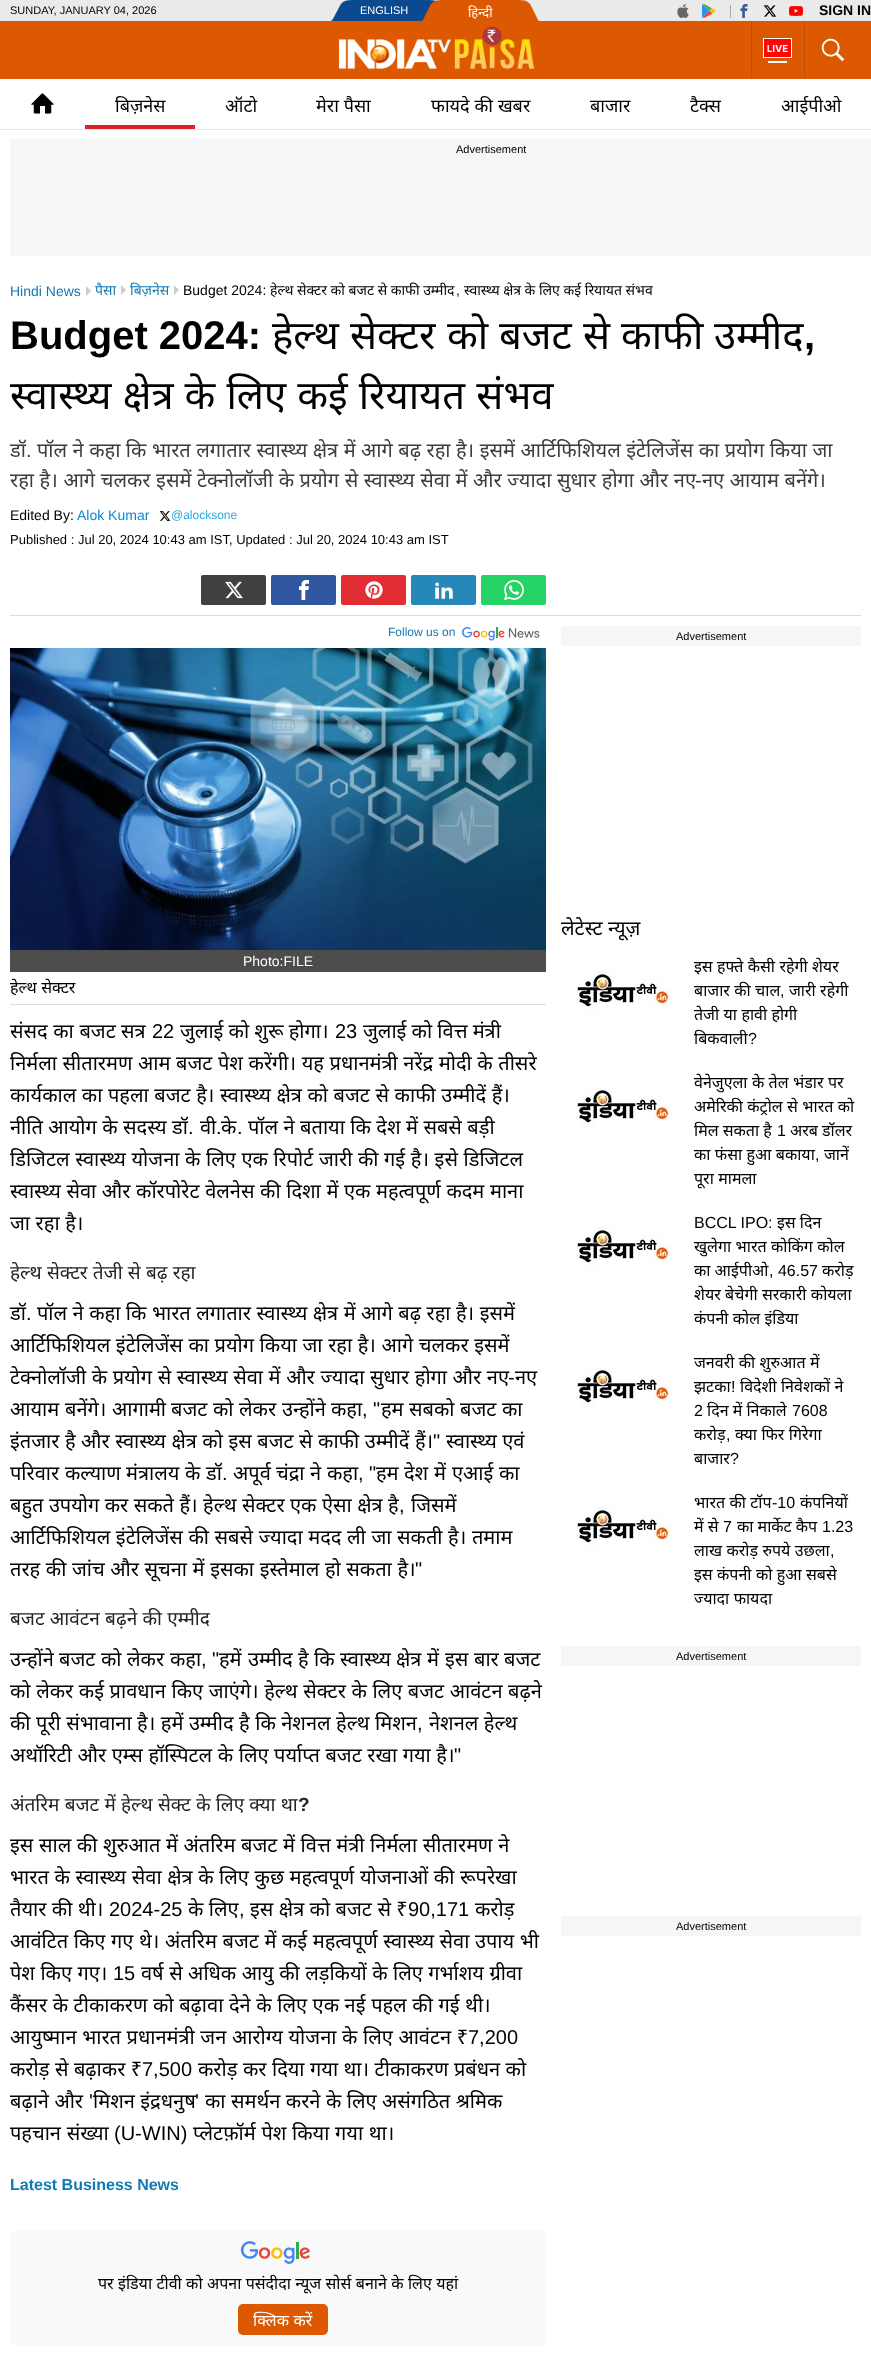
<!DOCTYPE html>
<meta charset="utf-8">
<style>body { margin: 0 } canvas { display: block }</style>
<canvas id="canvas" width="871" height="2361"></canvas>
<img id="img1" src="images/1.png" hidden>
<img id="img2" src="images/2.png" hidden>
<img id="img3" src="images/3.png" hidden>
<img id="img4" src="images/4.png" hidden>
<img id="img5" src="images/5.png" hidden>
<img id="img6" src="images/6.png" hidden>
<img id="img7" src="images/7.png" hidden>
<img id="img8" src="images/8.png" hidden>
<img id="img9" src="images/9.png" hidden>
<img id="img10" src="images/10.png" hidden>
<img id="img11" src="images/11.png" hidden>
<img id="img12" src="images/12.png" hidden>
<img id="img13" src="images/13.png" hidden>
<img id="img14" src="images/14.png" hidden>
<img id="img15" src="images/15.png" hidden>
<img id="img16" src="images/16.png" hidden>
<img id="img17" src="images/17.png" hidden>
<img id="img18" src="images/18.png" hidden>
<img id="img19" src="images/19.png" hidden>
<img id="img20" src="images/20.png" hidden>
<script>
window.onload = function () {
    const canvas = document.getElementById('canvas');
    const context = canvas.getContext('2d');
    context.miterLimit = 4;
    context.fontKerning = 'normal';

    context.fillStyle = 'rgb(255, 255, 255)';
    context.fillRect(0, 0, 871, 2361);
    context.fillStyle = 'rgb(234, 234, 234)';
    context.fillRect(0, 0, 871, 21);
    context.drawImage(document.getElementById('img1'), 331, 0, 208, 21);
    context.drawImage(document.getElementById('img2'), 677, 4, 12, 14);
    context.drawImage(document.getElementById('img3'), 702, 4, 14, 14);
    context.fillStyle = 'rgb(169, 169, 169)';
    context.fillRect(730, 5, 1, 13);
    context.drawImage(document.getElementById('img4'), 740, 4, 8, 14);
    context.drawImage(document.getElementById('img5'), 763, 5, 14, 12);
    context.drawImage(document.getElementById('img6'), 789, 6, 14, 10);
    context.fillStyle = 'rgb(220, 89, 1)';
    context.fillRect(0, 21, 871, 58);
    context.drawImage(document.getElementById('img7'), 339, 26, 195, 43);
    context.fillStyle = 'rgb(187, 81, 10)';
    context.fillRect(751, 21, 1, 58);
    context.drawImage(document.getElementById('img8'), 763, 38, 29, 25);
    context.fillRect(804, 21, 1, 58);
    context.drawImage(document.getElementById('img9'), 821, 38, 24, 24);
    context.fillStyle = 'rgb(230, 230, 230)';
    context.fillRect(0, 129, 871, 1);
    context.drawImage(document.getElementById('img10'), 31, 93, 23, 21);
    context.fillStyle = 'rgb(222, 31, 38)';
    context.fillRect(85, 125, 110, 4);
    context.fillStyle = 'rgb(246, 246, 246)';
    context.fillRect(10, 139, 861, 117);
    context.fillStyle = 'rgb(204, 204, 204)';
    context.beginPath();
    context.moveTo(86, 296);
    context.lineTo(86, 286);
    context.lineTo(91, 291);
    context.closePath();
    context.fill();
    context.beginPath();
    context.moveTo(121, 295);
    context.lineTo(121, 285);
    context.lineTo(126, 290);
    context.closePath();
    context.fill();
    context.beginPath();
    context.moveTo(174, 295);
    context.lineTo(174, 285);
    context.lineTo(179, 290);
    context.closePath();
    context.fill();
    context.fillStyle = 'rgb(219, 219, 219)';
    context.fillRect(10, 615, 851, 1);
    context.drawImage(document.getElementById('img11'), 159, 511, 12, 10);
    context.fillStyle = 'rgb(64, 64, 64)';
    context.beginPath();
    context.roundRect(201, 575, 65, 30, 2);
    context.fill();
    context.drawImage(document.getElementById('img12'), 225, 581, 18, 18);
    context.fillStyle = 'rgb(48, 87, 160)';
    context.beginPath();
    context.roundRect(271, 575, 65, 30, 2);
    context.fill();
    context.drawImage(document.getElementById('img13'), 299, 580, 10, 20);
    context.fillStyle = 'rgb(226, 45, 53)';
    context.beginPath();
    context.roundRect(341, 575, 65, 30, 2);
    context.fill();
    context.drawImage(document.getElementById('img14'), 365, 581, 18, 18);
    context.fillStyle = 'rgb(38, 135, 185)';
    context.beginPath();
    context.roundRect(411, 575, 65, 30, 2);
    context.fill();
    context.drawImage(document.getElementById('img15'), 435, 582, 18, 17);
    context.fillStyle = 'rgb(37, 211, 102)';
    context.beginPath();
    context.roundRect(481, 575, 65, 30, 2);
    context.fill();
    context.drawImage(document.getElementById('img16'), 504, 580, 20, 20);
    context.drawImage(document.getElementById('img17'), 462, 627, 78, 14);
    context.drawImage(document.getElementById('img18'), 10, 648, 536, 302);
    context.fillStyle = 'rgb(219, 219, 219)';
    context.fillRect(10, 1004, 536, 1);
    context.fillStyle = 'rgb(76, 76, 76)';
    context.fillRect(10, 950, 536, 22);
    context.fillStyle = 'rgb(249, 249, 249)';
    context.fillRect(10, 2231, 536, 114);
    context.drawImage(document.getElementById('img19'), 240, 2241, 70, 23);
    context.fillStyle = 'rgb(220, 89, 1)';
    context.beginPath();
    context.roundRect(238, 2304, 90, 31, 5);
    context.fill();
    context.fillStyle = 'rgb(246, 246, 246)';
    context.fillRect(561, 626, 300, 20);
    context.drawImage(document.getElementById('img20'), 574, 971, 100, 40);
    context.drawImage(document.getElementById('img20'), 574, 1087, 100, 40);
    context.drawImage(document.getElementById('img20'), 574, 1227, 100, 40);
    context.drawImage(document.getElementById('img20'), 574, 1367, 100, 40);
    context.drawImage(document.getElementById('img20'), 574, 1507, 100, 40);
    context.fillRect(561, 1646, 300, 20);
    context.fillRect(561, 1916, 300, 20);
    context.font = '11px Liberation Sans';
    context.fillStyle = 'rgb(1, 1, 1)';
    context.fillText('SUNDAY, JANUARY 04, 2026', 10, 14);
    context.fillStyle = 'rgb(255, 255, 255)';
    context.fillText('ENGLISH', 360, 14);
    context.font = '13px Noto Sans';
    context.fillText('हिन्दी', 468, 17);
    context.font = 'bold 14px Liberation Sans';
    context.fillStyle = 'rgb(1, 1, 1)';
    context.fillText('SIGN IN', 819, 15);
    context.font = '18px Noto Sans';
    context.fillText('बिज़नेस', 115, 112);
    context.fillText('ऑटो', 225, 112);
    context.wordSpacing = '0.25px';
    context.fillText('मेरा पैसा', 316, 112);
    context.fillText('फायदे की खबर', 431, 112);
    context.wordSpacing = '0px';
    context.fillText('बाजार', 590, 112);
    context.fillText('टैक्‍स', 690, 112);
    context.fillText('आईपीओ', 781, 112);
    context.font = '11px Liberation Sans';
    context.fillText('Advertisement', 456, 153);
    context.font = '14px Liberation Sans';
    context.fillStyle = 'rgb(17, 122, 179)';
    context.fillText('Hindi News', 10, 296);
    context.font = '14px Noto Sans';
    context.fillText('पैसा', 95, 295);
    context.fillText('बिज़नेस', 130, 295);
    context.font = '14px Liberation Sans';
    context.fillStyle = 'rgb(1, 1, 1)';
    context.fillText('Budget 2024:', 183, 295);
    context.font = '14px Noto Sans';
    context.fillText('हेल्थ सेक्टर को बजट से काफी उम्मीद', 270, 295);
    context.font = '14px Liberation Sans';
    context.fillText(',', 456, 295);
    context.font = '14px Noto Sans';
    context.fillText('स्वास्थ्य क्षेत्र के लिए कई रियायत संभव', 464, 295);
    context.font = 'bold 40px Liberation Sans';
    context.fillText('Budget 2024:', 10, 349);
    context.font = '40px Noto Sans';
    context.fillText('हेल्थ', 272, 349);
    context.fillText('सेक्टर', 350, 349);
    context.fillText('को', 447, 349);
    context.fillText('बजट', 499, 349);
    context.fillText('से', 583, 349);
    context.fillText('काफी', 621, 349);
    context.fillText('उम्मीद', 714, 349);
    context.font = 'bold 40px Liberation Sans';
    context.fillText(',', 804, 349);
    context.wordSpacing = '0.75px';
    context.font = '40px Noto Sans';
    context.fillText('स्वास्थ्य क्षेत्र के लिए कई रियायत संभव', 10, 409);
    context.wordSpacing = '0px';
    context.font = '20px Noto Sans';
    context.fillStyle = 'rgb(60, 60, 60)';
    context.fillText('डॉ', 10, 457);
    context.font = '20px Liberation Sans';
    context.fillText('.', 26, 457);
    context.wordSpacing = '0.3px';
    context.font = '20px Noto Sans';
    context.fillText('पॉल ने कहा कि भारत लगातार स्वास्थ्य क्षेत्र में आगे बढ़ रहा है। इसमें आर्टिफिशियल इंटेलिजेंस का प्रयोग किया जा', 37, 457);
    context.wordSpacing = '0.4px';
    context.fillText('रहा है। आगे चलकर इसमें टेक्नोलॉजी के प्रयोग से स्वास्थ्य सेवा में और ज्यादा सुधार होगा और नए', 10, 487);
    context.wordSpacing = '0px';
    context.font = '20px Liberation Sans';
    context.fillText('-', 695, 487);
    context.wordSpacing = '0.4px';
    context.font = '20px Noto Sans';
    context.fillText('नए आयाम बनेंगे।', 702, 487);
    context.wordSpacing = '0px';
    context.font = '14px Liberation Sans';
    context.fillStyle = 'rgb(1, 1, 1)';
    context.fillText('Edited By:', 10, 520);
    context.fillStyle = 'rgb(11, 137, 205)';
    context.fillText('Alok Kumar', 77, 520);
    context.font = '12px Liberation Sans';
    context.fillStyle = 'rgb(42, 169, 224)';
    context.fillText('@alocksone', 171, 519);
    context.font = '13px Liberation Sans';
    context.fillStyle = 'rgb(1, 1, 1)';
    context.fillText('Published : Jul 20, 2024 10:43 am IST, Updated : Jul 20, 2024 10:43 am IST', 10, 544);
    context.font = '12px Liberation Sans';
    context.fillStyle = 'rgb(17, 122, 179)';
    context.fillText('Follow us on', 388, 636);
    context.font = '14px Liberation Sans';
    context.fillStyle = 'rgb(255, 255, 255)';
    context.fillText('Photo:FILE', 243, 966);
    context.wordSpacing = '0.25px';
    context.font = '16px Noto Sans';
    context.fillStyle = 'rgb(1, 1, 1)';
    context.fillText('हेल्थ सेक्टर', 10, 993);
    context.wordSpacing = '0.4px';
    context.font = '20px Noto Sans';
    context.fillText('संसद का बजट', 10, 1038);
    context.wordSpacing = '0px';
    context.fillText('सत्र', 121, 1038);
    context.font = '20px Liberation Sans';
    context.fillText('22', 152, 1038);
    context.font = '20px Noto Sans';
    context.fillText('जुलाई को शुरू होगा।', 180, 1038);
    context.font = '20px Liberation Sans';
    context.fillText('23', 335, 1038);
    context.font = '20px Noto Sans';
    context.fillText('जुलाई को वित्त मंत्री', 363, 1038);
    context.wordSpacing = '0.4px';
    context.fillText('निर्मला सीतारमण आम बजट पेश करेंगी। यह प्रधानमंत्री नरेंद्र मोदी के तीसरे', 10, 1070);
    context.fillText('कार्यकाल का पहला बजट है। स्वास्थ्य क्षेत्र को बजट से काफी उम्मीदें हैं।', 10, 1102);
    context.wordSpacing = '0.25px';
    context.fillText('नीति आयोग के सदस्य डॉ', 10, 1134);
    context.wordSpacing = '0px';
    context.font = '20px Liberation Sans';
    context.fillText('.', 188, 1134);
    context.font = '20px Noto Sans';
    context.fillText('वी', 200, 1134);
    context.wordSpacing = '0.25px';
    context.fillText('पॉल ने बताया कि देश में सबसे बड़ी', 248, 1134);
    context.wordSpacing = '0px';
    context.font = '20px Liberation Sans';
    context.fillText('.', 216, 1134);
    context.font = '20px Noto Sans';
    context.fillText('के', 221, 1134);
    context.font = '20px Liberation Sans';
    context.fillText('.', 237, 1134);
    context.wordSpacing = '0.4px';
    context.font = '20px Noto Sans';
    context.fillText('डिजिटल स्वास्थ्य योजना के लिए एक रिपोर्ट जारी की गई है। इसे डिजिटल', 10, 1166);
    context.fillText('स्वास्थ्य सेवा और कॉरपोरेट वेलनेस की दिशा में एक महत्वपूर्ण कदम माना', 10, 1198);
    context.fillText('जा रहा है।', 10, 1230);
    context.wordSpacing = '0.3px';
    context.font = '19px Noto Sans';
    context.fillStyle = 'rgb(34, 34, 34)';
    context.fillText('हेल्थ सेक्टर तेजी से बढ़ रहा', 10, 1279);
    context.wordSpacing = '0px';
    context.font = '20px Noto Sans';
    context.fillStyle = 'rgb(1, 1, 1)';
    context.fillText('डॉ', 10, 1320);
    context.font = '20px Liberation Sans';
    context.fillText('.', 26, 1320);
    context.wordSpacing = '0.3px';
    context.font = '20px Noto Sans';
    context.fillText('पॉल ने कहा कि भारत लगातार स्वास्थ्य क्षेत्र में आगे बढ़ रहा है। इसमें', 37, 1320);
    context.wordSpacing = '0.4px';
    context.fillText('आर्टिफिशियल इंटेलिजेंस का प्रयोग किया जा रहा है। आगे चलकर इसमें', 10, 1352);
    context.fillText('टेक्नोलॉजी के प्रयोग से स्वास्थ्य सेवा में और ज्यादा सुधार होगा और नए', 10, 1384);
    context.wordSpacing = '0px';
    context.font = '20px Liberation Sans';
    context.fillText('-', 508, 1384);
    context.font = '20px Noto Sans';
    context.fillText('नए', 515, 1384);
    context.fillText('आयाम', 10, 1416);
    context.fillText('बनेंगे।', 65, 1416);
    context.fillText('आगामी', 112, 1416);
    context.fillText('बजट', 171, 1416);
    context.fillText('को', 213, 1416);
    context.fillText('लेकर', 239, 1416);
    context.fillText('उन्होंने', 282, 1416);
    context.fillText('कहा', 331, 1416);
    context.font = '20px Liberation Sans';
    context.fillText(', "', 362, 1416);
    context.font = '20px Noto Sans';
    context.fillText('हम', 381, 1416);
    context.fillText('सबको', 409, 1416);
    context.fillText('बजट', 460, 1416);
    context.fillText('का', 502, 1416);
    context.wordSpacing = '0.3px';
    context.fillText('इंतजार है और स्वास्थ्य क्षेत्र को इस बजट से काफी उम्मीदें हैं।', 10, 1448);
    context.wordSpacing = '0px';
    context.font = '20px Liberation Sans';
    context.fillText('"', 433, 1448);
    context.wordSpacing = '0.3px';
    context.font = '20px Noto Sans';
    context.fillText('स्वास्थ्य एवं', 446, 1448);
    context.wordSpacing = '0px';
    context.fillText('परिवार', 10, 1480);
    context.fillText('कल्याण', 65, 1480);
    context.fillText('मंत्रालय', 126, 1480);
    context.fillText('के', 185, 1480);
    context.fillText('डॉ', 206, 1480);
    context.font = '20px Liberation Sans';
    context.fillText('.', 222, 1480);
    context.font = '20px Noto Sans';
    context.fillText('अपूर्व', 233, 1480);
    context.fillText('चंद्रा', 276, 1480);
    context.fillText('ने', 310, 1480);
    context.fillText('कहा', 327, 1480);
    context.font = '20px Liberation Sans';
    context.fillText(', "', 358, 1480);
    context.font = '20px Noto Sans';
    context.fillText('हम', 376, 1480);
    context.fillText('देश', 404, 1480);
    context.fillText('में', 434, 1480);
    context.fillText('एआई', 452, 1480);
    context.fillText('का', 499, 1480);
    context.wordSpacing = '0.25px';
    context.fillText('बहुत उपयोग कर सकते हैं। हेल्थ सेक्टर एक ऐसा क्षेत्र है', 10, 1512);
    context.wordSpacing = '0px';
    context.font = '20px Liberation Sans';
    context.fillText(',', 399, 1512);
    context.font = '20px Noto Sans';
    context.fillText('जिसमें', 411, 1512);
    context.wordSpacing = '0.4px';
    context.fillText('आर्टिफिशियल इंटेलिजेंस की सबसे ज्यादा मदद ली जा सकती है। तमाम', 10, 1544);
    context.fillText('तरह की जांच और सूचना में इसका इस्तेमाल हो सकता है।', 10, 1576);
    context.wordSpacing = '0px';
    context.font = '20px Liberation Sans';
    context.fillText('"', 415, 1576);
    context.wordSpacing = '0.3px';
    context.font = '19px Noto Sans';
    context.fillStyle = 'rgb(34, 34, 34)';
    context.fillText('बजट आवंटन बढ़ने की एम्मीद', 10, 1625);
    context.wordSpacing = '0px';
    context.font = '20px Noto Sans';
    context.fillStyle = 'rgb(1, 1, 1)';
    context.fillText('उन्होंने', 10, 1666);
    context.fillText('बजट', 59, 1666);
    context.fillText('को', 101, 1666);
    context.fillText('लेकर', 127, 1666);
    context.fillText('कहा', 170, 1666);
    context.font = '20px Liberation Sans';
    context.fillText(', "', 201, 1666);
    context.font = '20px Noto Sans';
    context.fillText('हमें', 219, 1666);
    context.fillText('उम्मीद', 248, 1666);
    context.fillText('है', 298, 1666);
    context.fillText('कि', 314, 1666);
    context.fillText('स्वास्थ्य', 340, 1666);
    context.fillText('क्षेत्र', 396, 1666);
    context.fillText('में', 427, 1666);
    context.fillText('इस', 445, 1666);
    context.fillText('बार', 474, 1666);
    context.fillText('बजट', 504, 1666);
    context.wordSpacing = '0.4px';
    context.fillText('को लेकर कई प्रावधान किए जाएंगे। हेल्थ सेक्टर के लिए बजट आवंटन बढ़ने', 10, 1698);
    context.wordSpacing = '0.3px';
    context.fillText('की पूरी संभावाना है। हमें उम्मीद है कि नेशनल हेल्थ मिशन', 10, 1730);
    context.wordSpacing = '0px';
    context.font = '20px Liberation Sans';
    context.fillText(',', 417, 1730);
    context.wordSpacing = '0.3px';
    context.font = '20px Noto Sans';
    context.fillText('नेशनल हेल्थ', 429, 1730);
    context.wordSpacing = '0.4px';
    context.fillText('अथॉरिटी और एम्स हॉस्पिटल के लिए पर्याप्त बजट रखा गया है।', 10, 1762);
    context.wordSpacing = '0px';
    context.font = '20px Liberation Sans';
    context.fillText('"', 454, 1762);
    context.wordSpacing = '0.3px';
    context.font = '19px Noto Sans';
    context.fillStyle = 'rgb(34, 34, 34)';
    context.fillText('अंतरिम बजट में हेल्थ सेक्ट के लिए क्या था', 10, 1811);
    context.wordSpacing = '0px';
    context.font = 'bold 19px Liberation Sans';
    context.fillText('?', 298, 1811);
    context.wordSpacing = '0.4px';
    context.font = '20px Noto Sans';
    context.fillStyle = 'rgb(1, 1, 1)';
    context.fillText('इस साल की शुरुआत में अंतरिम बजट में वित्त मंत्री निर्मला सीतारमण ने', 10, 1852);
    context.fillText('भारत के स्वास्थ्य सेवा क्षेत्र के लिए कुछ महत्वपूर्ण योजनाओं की रूपरेखा', 10, 1884);
    context.wordSpacing = '0.25px';
    context.fillText('तैयार की थी।', 10, 1916);
    context.wordSpacing = '0px';
    context.font = '20px Liberation Sans';
    context.fillText('2024-25', 109, 1916);
    context.wordSpacing = '0.25px';
    context.font = '20px Noto Sans';
    context.fillText('के लिए', 188, 1916);
    context.wordSpacing = '0px';
    context.font = '20px Liberation Sans';
    context.fillText(',', 239, 1916);
    context.wordSpacing = '0.25px';
    context.font = '20px Noto Sans';
    context.fillText('इस क्षेत्र को बजट से ₹', 250, 1916);
    context.wordSpacing = '0px';
    context.font = '20px Liberation Sans';
    context.fillText('90,171', 408, 1916);
    context.font = '20px Noto Sans';
    context.fillText('करोड़', 475, 1916);
    context.wordSpacing = '0.4px';
    context.fillText('आवंटित किए गए थे। अंतरिम बजट में कई महत्वपूर्ण स्वास्थ्य सेवा उपाय भी', 10, 1948);
    context.wordSpacing = '0.25px';
    context.fillText('पेश किए गए।', 10, 1980);
    context.wordSpacing = '0px';
    context.font = '20px Liberation Sans';
    context.fillText('15', 113, 1980);
    context.wordSpacing = '0.25px';
    context.font = '20px Noto Sans';
    context.fillText('वर्ष से अधिक आयु की लड़कियों के लिए गर्भाशय ग्रीवा', 141, 1980);
    context.wordSpacing = '0.4px';
    context.fillText('कैंसर के टीकाकरण को बढ़ावा देने के लिए एक नई पहल की गई थी।', 10, 2012);
    context.fillText('आयुष्मान भारत प्रधानमंत्री जन आरोग्य योजना के लिए आवंटन ₹', 10, 2044);
    context.wordSpacing = '0px';
    context.font = '20px Liberation Sans';
    context.fillText('7,200', 468, 2044);
    context.wordSpacing = '0.3px';
    context.font = '20px Noto Sans';
    context.fillText('करोड़ से बढ़ाकर ₹', 10, 2076);
    context.wordSpacing = '0px';
    context.font = '20px Liberation Sans';
    context.fillText('7,500', 142, 2076);
    context.wordSpacing = '0.3px';
    context.font = '20px Noto Sans';
    context.fillText('करोड़ कर दिया गया था। टीकाकरण प्रबंधन को', 198, 2076);
    context.wordSpacing = '0.25px';
    context.fillText('बढ़ाने और', 10, 2108);
    context.wordSpacing = '0px';
    context.font = '20px Liberation Sans';
    context.fillText('\'', 89, 2108);
    context.wordSpacing = '0.25px';
    context.font = '20px Noto Sans';
    context.fillText('मिशन इंद्रधनुष', 93, 2108);
    context.wordSpacing = '0px';
    context.font = '20px Liberation Sans';
    context.fillText('\'', 195, 2108);
    context.wordSpacing = '0.25px';
    context.font = '20px Noto Sans';
    context.fillText('का समर्थन करने के लिए असंगठित श्रमिक', 205, 2108);
    context.wordSpacing = '0.5px';
    context.fillText('पहचान संख्या', 10, 2140);
    context.wordSpacing = '0px';
    context.font = '20px Liberation Sans';
    context.fillText('(U-WIN)', 114, 2140);
    context.wordSpacing = '0.5px';
    context.font = '20px Noto Sans';
    context.fillText('प्लेटफ़ॉर्म पेश किया गया था।', 193, 2140);
    context.wordSpacing = '0px';
    context.font = 'bold 16px Liberation Sans';
    context.fillStyle = 'rgb(17, 122, 179)';
    context.fillText('Latest Business News', 10, 2190);
    context.wordSpacing = '0.25px';
    context.font = '16px Noto Sans';
    context.fillStyle = 'rgb(1, 1, 1)';
    context.fillText('पर इंडिया टीवी को अपना पसंदीदा न्यूज सोर्स बनाने के लिए यहां', 98, 2289);
    context.fillStyle = 'rgb(255, 255, 255)';
    context.fillText('क्लिक करें', 253, 2326);
    context.wordSpacing = '0px';
    context.font = '11px Liberation Sans';
    context.fillStyle = 'rgb(1, 1, 1)';
    context.fillText('Advertisement', 676, 640);
    context.wordSpacing = '0.4px';
    context.font = '20px Noto Sans';
    context.fillText('लेटेस्ट न्यूज़', 561, 935);
    context.wordSpacing = '0.25px';
    context.font = '16px Noto Sans';
    context.fillText('इस हफ्ते कैसी रहेगी शेयर', 694, 972);
    context.fillText('बाजार की चाल', 694, 996);
    context.wordSpacing = '0px';
    context.font = '16px Liberation Sans';
    context.fillText(',', 780, 996);
    context.wordSpacing = '0.25px';
    context.font = '16px Noto Sans';
    context.fillText('जारी रहेगी', 789, 996);
    context.fillText('तेजी या हावी होगी', 694, 1020);
    context.wordSpacing = '0px';
    context.fillText('बिकवाली', 694, 1044);
    context.font = '16px Liberation Sans';
    context.fillText('?', 748, 1044);
    context.wordSpacing = '0.25px';
    context.font = '16px Noto Sans';
    context.fillText('वेनेजुएला के तेल भंडार पर', 694, 1088);
    context.fillText('अमेरिकी कंट्रोल से भारत को', 694, 1112);
    context.wordSpacing = '0px';
    context.fillText('मिल सकता है', 694, 1136);
    context.font = '16px Liberation Sans';
    context.fillText('1', 777, 1136);
    context.font = '16px Noto Sans';
    context.fillText('अरब डॉलर', 790, 1136);
    context.wordSpacing = '0.25px';
    context.fillText('का फंसा हुआ बकाया', 694, 1160);
    context.wordSpacing = '0px';
    context.font = '16px Liberation Sans';
    context.fillText(',', 815, 1160);
    context.font = '16px Noto Sans';
    context.fillText('जानें', 824, 1160);
    context.wordSpacing = '0.25px';
    context.fillText('पूरा मामला', 694, 1184);
    context.wordSpacing = '0px';
    context.font = '16px Liberation Sans';
    context.fillText('BCCL IPO:', 694, 1228);
    context.font = '16px Noto Sans';
    context.fillText('इस दिन', 777, 1228);
    context.wordSpacing = '0.25px';
    context.fillText('खुलेगा भारत कोकिंग कोल', 694, 1252);
    context.wordSpacing = '0px';
    context.fillText('का आईपीओ', 694, 1276);
    context.font = '16px Liberation Sans';
    context.fillText(', 46.57', 769, 1276);
    context.font = '16px Noto Sans';
    context.fillText('करोड़', 822, 1276);
    context.wordSpacing = '0.25px';
    context.fillText('शेयर बेचेगी सरकारी कोयला', 694, 1300);
    context.fillText('कंपनी कोल इंडिया', 694, 1324);
    context.fillText('जनवरी की शुरुआत में', 694, 1368);
    context.wordSpacing = '0px';
    context.fillText('झटका', 694, 1392);
    context.font = '16px Liberation Sans';
    context.fillText('!', 731, 1392);
    context.wordSpacing = '0.25px';
    context.font = '16px Noto Sans';
    context.fillText('विदेशी निवेशकों ने', 740, 1392);
    context.wordSpacing = '0px';
    context.font = '16px Liberation Sans';
    context.fillText('2', 694, 1416);
    context.font = '16px Noto Sans';
    context.fillText('दिन में निकाले', 707, 1416);
    context.font = '16px Liberation Sans';
    context.fillText('7608', 792, 1416);
    context.font = '16px Noto Sans';
    context.fillText('करोड़', 694, 1440);
    context.font = '16px Liberation Sans';
    context.fillText(',', 726, 1440);
    context.wordSpacing = '0.25px';
    context.font = '16px Noto Sans';
    context.fillText('क्या फिर गिरेगा', 735, 1440);
    context.wordSpacing = '0px';
    context.fillText('बाजार', 694, 1464);
    context.font = '16px Liberation Sans';
    context.fillText('?', 730, 1464);
    context.wordSpacing = '0.25px';
    context.font = '16px Noto Sans';
    context.fillText('भारत की टॉप', 694, 1508);
    context.wordSpacing = '0px';
    context.font = '16px Liberation Sans';
    context.fillText('-10', 772, 1508);
    context.font = '16px Noto Sans';
    context.fillText('कंपनियों', 800, 1508);
    context.fillText('में से', 694, 1532);
    context.font = '16px Liberation Sans';
    context.fillText('7', 723, 1532);
    context.font = '16px Noto Sans';
    context.fillText('का मार्केट कैप', 737, 1532);
    context.font = '16px Liberation Sans';
    context.fillText('1.23', 822, 1532);
    context.wordSpacing = '0.25px';
    context.font = '16px Noto Sans';
    context.fillText('लाख करोड़ रुपये उछला', 694, 1556);
    context.wordSpacing = '0px';
    context.font = '16px Liberation Sans';
    context.fillText(',', 830, 1556);
    context.wordSpacing = '0.25px';
    context.font = '16px Noto Sans';
    context.fillText('इस कंपनी को हुआ सबसे', 694, 1580);
    context.fillText('ज्यादा फायदा', 694, 1604);
    context.wordSpacing = '0px';
    context.font = '11px Liberation Sans';
    context.fillText('Advertisement', 676, 1660);
    context.fillText('Advertisement', 676, 1930);
};
</script>
